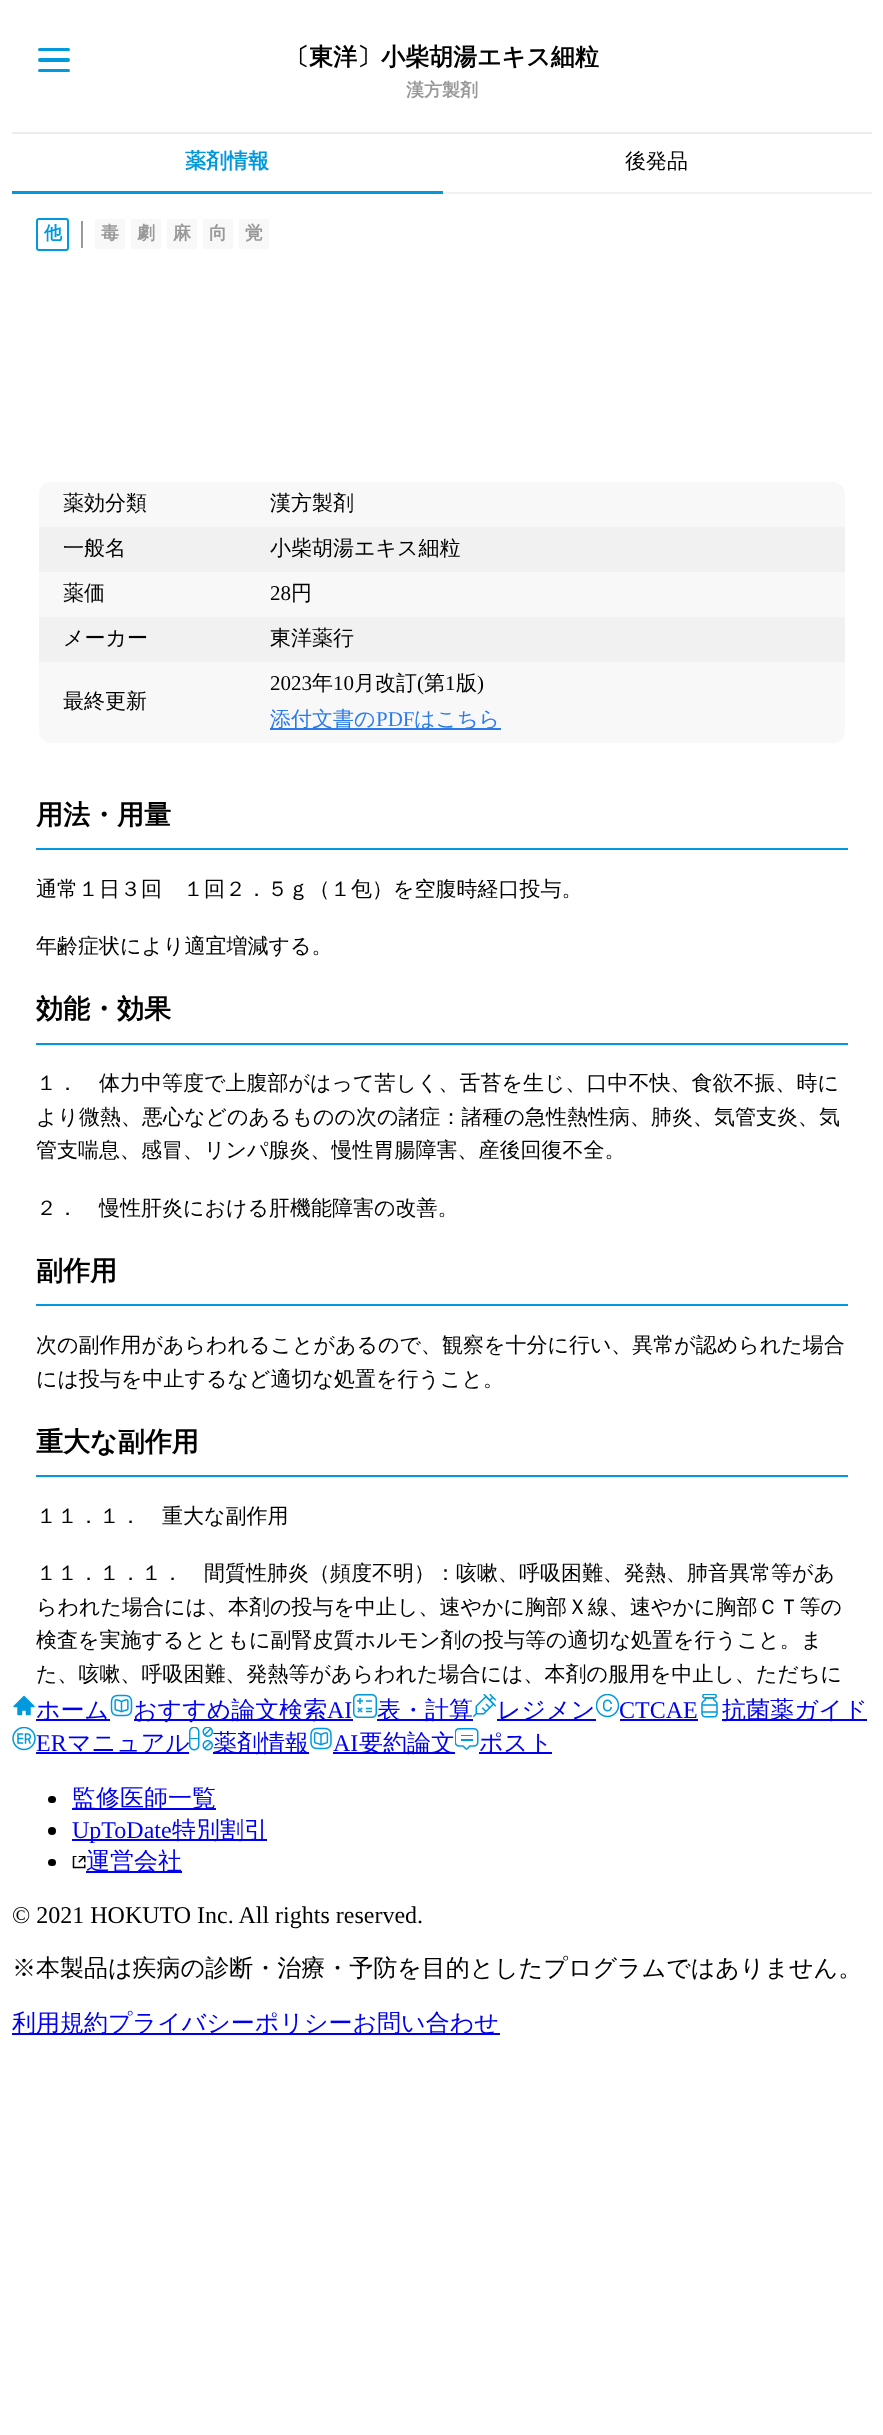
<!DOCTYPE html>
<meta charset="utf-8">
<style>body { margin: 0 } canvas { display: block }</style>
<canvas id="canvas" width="883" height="2435"></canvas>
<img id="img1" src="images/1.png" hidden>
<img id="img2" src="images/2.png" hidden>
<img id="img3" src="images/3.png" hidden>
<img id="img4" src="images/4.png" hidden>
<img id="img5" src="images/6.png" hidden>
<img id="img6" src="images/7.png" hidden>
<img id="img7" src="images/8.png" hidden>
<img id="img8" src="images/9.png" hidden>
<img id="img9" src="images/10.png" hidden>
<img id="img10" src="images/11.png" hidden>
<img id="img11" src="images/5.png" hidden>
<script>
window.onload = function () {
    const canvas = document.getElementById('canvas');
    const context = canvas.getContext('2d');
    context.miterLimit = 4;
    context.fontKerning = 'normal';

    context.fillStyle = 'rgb(255, 255, 255)';
    context.fillRect(0, 0, 883, 2435);
    context.fillStyle = 'rgb(235, 236, 237)';
    context.fillRect(12, 132, 860, 2);
    context.fillStyle = 'rgb(0, 153, 221)';
    context.beginPath();
    context.roundRect(38, 48, 32, 3, 1.5);
    context.fill();
    context.beginPath();
    context.roundRect(38, 58, 32, 4, 2);
    context.fill();
    context.beginPath();
    context.roundRect(38, 69, 32, 3, 1.5);
    context.fill();
    context.fillRect(12, 191, 431, 3);
    context.fillStyle = 'rgb(241, 241, 241)';
    context.fillRect(443, 192, 429, 2);
    context.beginPath();
    context.roundRect(37, 219, 31, 31, 2);
    context.strokeStyle = 'rgb(0, 153, 221)';
    context.lineWidth = 2;
    context.stroke();
    context.fillStyle = 'rgb(153, 153, 153)';
    context.fillRect(81, 221, 2, 27);
    context.fillStyle = 'rgb(248, 248, 248)';
    context.beginPath();
    context.roundRect(95, 219, 30, 30, 3);
    context.fill();
    context.beginPath();
    context.roundRect(131, 219, 30, 30, 3);
    context.fill();
    context.beginPath();
    context.roundRect(167, 219, 30, 30, 3);
    context.fill();
    context.beginPath();
    context.roundRect(203, 219, 30, 30, 3);
    context.fill();
    context.beginPath();
    context.roundRect(239, 219, 30, 30, 3);
    context.fill();
    context.beginPath();
    context.roundRect(39, 482, 806, 45, [12, 12, 0, 0]);
    context.fill();
    context.fillStyle = 'rgb(241, 241, 241)';
    context.fillRect(39, 527, 806, 45);
    context.fillStyle = 'rgb(248, 248, 248)';
    context.fillRect(39, 572, 806, 45);
    context.fillStyle = 'rgb(241, 241, 241)';
    context.fillRect(39, 617, 806, 45);
    context.fillStyle = 'rgb(248, 248, 248)';
    context.beginPath();
    context.roundRect(39, 662, 806, 81, [0, 0, 12, 12]);
    context.fill();
    context.fillStyle = 'rgb(43, 123, 238)';
    context.fillRect(270, 728, 231, 2);
    context.fillStyle = 'rgb(0, 153, 221)';
    context.fillRect(36, 848, 812, 2);
    context.fillRect(36, 1043, 812, 2);
    context.fillRect(36, 1304, 812, 2);
    context.fillRect(36, 1475, 812, 2);
    context.drawImage(document.getElementById('img1'), 13, 1695, 22, 21);
    context.fillStyle = 'rgb(0, 0, 238)';
    context.fillRect(36, 1719, 74, 2);
    context.drawImage(document.getElementById('img2'), 110, 1694, 23, 23);
    context.fillRect(134, 1719, 219, 2);
    context.drawImage(document.getElementById('img3'), 353, 1694, 24, 24);
    context.fillRect(377, 1719, 96, 2);
    context.drawImage(document.getElementById('img4'), 473, 1694, 24, 24);
    context.fillRect(497, 1719, 99, 2);
    context.fillRect(620, 1719, 78, 2);
    context.drawImage(document.getElementById('img5'), 701, 1694, 17, 24);
    context.fillRect(722, 1719, 145, 2);
    context.drawImage(document.getElementById('img6'), 12, 1727, 24, 24);
    context.fillRect(36, 1752, 153, 2);
    context.drawImage(document.getElementById('img7'), 189, 1727, 24, 24);
    context.fillRect(213, 1752, 96, 2);
    context.drawImage(document.getElementById('img8'), 310, 1727, 22, 23);
    context.fillRect(333, 1752, 122, 2);
    context.drawImage(document.getElementById('img9'), 455, 1728, 24, 22);
    context.fillRect(479, 1752, 73, 2);
    context.fillStyle = 'rgb(0, 0, 0)';
    context.beginPath();
    context.roundRect(48, 1796, 8, 7, 3.5);
    context.fill();
    context.fillStyle = 'rgb(0, 0, 238)';
    context.fillRect(72, 1808, 144, 2);
    context.fillStyle = 'rgb(0, 0, 0)';
    context.beginPath();
    context.arc(52, 1831, 4, 0, 2 * Math.PI);
    context.fill();
    context.fillStyle = 'rgb(0, 0, 238)';
    context.fillRect(72, 1839, 195, 2);
    context.fillStyle = 'rgb(0, 0, 0)';
    context.beginPath();
    context.roundRect(48, 1859, 8, 7, 3.5);
    context.fill();
    context.drawImage(document.getElementById('img10'), 72, 1856, 14, 13);
    context.fillStyle = 'rgb(0, 0, 238)';
    context.fillRect(86, 1871, 96, 2);
    context.fillRect(12, 2033, 488, 2);
    context.font = 'bold 24px WenQuanYi Zen Hei';
    context.fillStyle = 'rgb(0, 0, 0)';
    context.fillText('〔東洋〕小柴胡湯エキス細粒', 285, 65);
    context.font = 'bold 18px WenQuanYi Zen Hei';
    context.fillStyle = 'rgb(153, 153, 153)';
    context.fillText('漢方製剤', 406, 96);
    context.font = 'bold 21px WenQuanYi Zen Hei';
    context.fillStyle = 'rgb(0, 153, 221)';
    context.fillText('薬剤情報', 185, 168);
    context.font = '500 21px WenQuanYi Zen Hei';
    context.fillStyle = 'rgb(0, 0, 0)';
    context.fillText('後発品', 625, 168);
    context.font = 'bold 18px WenQuanYi Zen Hei';
    context.fillStyle = 'rgb(0, 153, 221)';
    context.fillText('他', 44, 239);
    context.fillStyle = 'rgb(153, 153, 153)';
    context.fillText('毒', 101, 239);
    context.fillText('劇', 137, 239);
    context.fillText('麻', 173, 239);
    context.fillText('向', 209, 239);
    context.fillText('覚', 245, 239);
    context.font = '500 21px WenQuanYi Zen Hei';
    context.fillStyle = 'rgb(0, 0, 0)';
    context.fillText('薬効分類', 63, 510);
    context.fillText('漢方製剤', 270, 510);
    context.fillText('一般名', 63, 555);
    context.fillText('小柴胡湯エキス細粒', 270, 555);
    context.fillText('薬価', 63, 600);
    context.font = '21px Liberation Serif';
    context.fillText('28', 270, 600);
    context.font = '500 21px WenQuanYi Zen Hei';
    context.fillText('円', 291, 600);
    context.fillText('メーカー', 63, 645);
    context.fillText('東洋薬行', 270, 645);
    context.fillText('最終更新', 63, 708);
    context.font = '21px Liberation Serif';
    context.fillText('2023', 270, 690);
    context.font = '500 21px WenQuanYi Zen Hei';
    context.fillText('年', 312, 690);
    context.font = '21px Liberation Serif';
    context.fillText('10', 333, 690);
    context.font = '500 21px WenQuanYi Zen Hei';
    context.fillText('月改訂', 354, 690);
    context.font = '21px Liberation Serif';
    context.fillText('(', 417, 690);
    context.font = '500 21px WenQuanYi Zen Hei';
    context.fillText('第', 424, 690);
    context.font = '21px Liberation Serif';
    context.fillText('1', 445, 690);
    context.font = '500 21px WenQuanYi Zen Hei';
    context.fillText('版', 456, 690);
    context.font = '21px Liberation Serif';
    context.fillText(')', 477, 690);
    context.font = '500 21px WenQuanYi Zen Hei';
    context.fillStyle = 'rgb(43, 123, 238)';
    context.fillText('添付文書の', 270, 726);
    context.font = '21px Liberation Serif';
    context.fillText('PDF', 376, 726);
    context.font = '500 21px WenQuanYi Zen Hei';
    context.fillText('はこちら', 414, 726);
    context.font = 'bold 27px WenQuanYi Zen Hei';
    context.fillStyle = 'rgb(0, 0, 0)';
    context.fillText('用法・用量', 36, 824);
    context.font = '500 21px WenQuanYi Zen Hei';
    context.fillText('通常１日３回　１回２．５ｇ（１包）を空腹時経口投与。', 36, 896);
    context.fillText('年齢症状により適宜増減する。', 36, 953);
    context.font = 'bold 27px WenQuanYi Zen Hei';
    context.fillText('効能・効果', 36, 1018);
    context.font = '500 21px WenQuanYi Zen Hei';
    context.fillText('１．　体力中等度で上腹部がはって苦しく、舌苔を生じ、口中不快、食欲不振、時に', 36, 1090);
    context.fillText('より微熱、悪心などのあるものの次の諸症：諸種の急性熱性病、肺炎、気管支炎、気', 36, 1124);
    context.fillText('管支喘息、感冒、リンパ腺炎、慢性胃腸障害、産後回復不全。', 36, 1157);
    context.fillText('２．　慢性肝炎における肝機能障害の改善。', 36, 1215);
    context.font = 'bold 27px WenQuanYi Zen Hei';
    context.fillText('副作用', 36, 1280);
    context.font = '500 21px WenQuanYi Zen Hei';
    context.fillText('次の副作用があらわれることがあるので、観察を十分に行い、異常が認められた場合', 36, 1352);
    context.fillText('には投与を中止するなど適切な処置を行うこと。', 36, 1386);
    context.font = 'bold 27px WenQuanYi Zen Hei';
    context.fillText('重大な副作用', 36, 1451);
    context.font = '500 21px WenQuanYi Zen Hei';
    context.fillText('１１．１．　重大な副作用', 36, 1523);
    context.fillText('１１．１．１．　間質性肺炎（頻度不明）：咳嗽、呼吸困難、発熱、肺音異常等があ', 36, 1580);
    context.fillText('らわれた場合には、本剤の投与を中止し、速やかに胸部Ｘ線、速やかに胸部ＣＴ等の', 36, 1614);
    context.fillText('検査を実施するとともに副腎皮質ホルモン剤の投与等の適切な処置を行うこと。ま', 36, 1647);
    context.fillText('た、咳嗽、呼吸困難、発熱等があらわれた場合には、本剤の服用を中止し、ただちに', 36, 1681);
    context.font = '500 24px WenQuanYi Zen Hei';
    context.fillStyle = 'rgb(0, 0, 238)';
    context.fillText('ホーム', 36, 1718);
    context.fillText('おすすめ論文検索', 133, 1718);
    context.font = '24px Liberation Serif';
    context.fillText('AI', 327, 1718);
    context.font = '500 24px WenQuanYi Zen Hei';
    context.fillText('表・計算', 377, 1718);
    context.fillText('レジメン', 497, 1718);
    context.font = '24px Liberation Serif';
    context.fillText('CTCAE', 619, 1718);
    context.drawImage(document.getElementById('img11'), 596, 1694, 24, 24);
    context.font = '500 24px WenQuanYi Zen Hei';
    context.fillText('抗菌薬ガイド', 722, 1718);
    context.font = '24px Liberation Serif';
    context.fillText('ER', 36, 1751);
    context.font = '500 24px WenQuanYi Zen Hei';
    context.fillText('マニュアル', 67, 1751);
    context.fillText('薬剤情報', 213, 1751);
    context.font = '24px Liberation Serif';
    context.fillText('AI', 333, 1751);
    context.font = '500 24px WenQuanYi Zen Hei';
    context.fillText('要約論文', 359, 1751);
    context.fillText('ポスト', 479, 1751);
    context.fillText('監修医師一覧', 72, 1806);
    context.font = '24px Liberation Serif';
    context.fillText('UpToDate', 72, 1838);
    context.font = '500 24px WenQuanYi Zen Hei';
    context.fillText('特別割引', 172, 1838);
    context.fillText('運営会社', 86, 1869);
    context.font = '24px Liberation Serif';
    context.fillStyle = 'rgb(0, 0, 0)';
    context.fillText('© 2021 HOKUTO Inc. All rights reserved.', 12, 1923);
    context.font = '500 24px WenQuanYi Zen Hei';
    context.fillText('※本製品は疾病の診断・治療・予防を目的としたプログラムではありません。', 12, 1976);
    context.fillStyle = 'rgb(0, 0, 238)';
    context.fillText('利用規約プライバシーポリシーお問い合わせ', 12, 2031);
};
</script>
